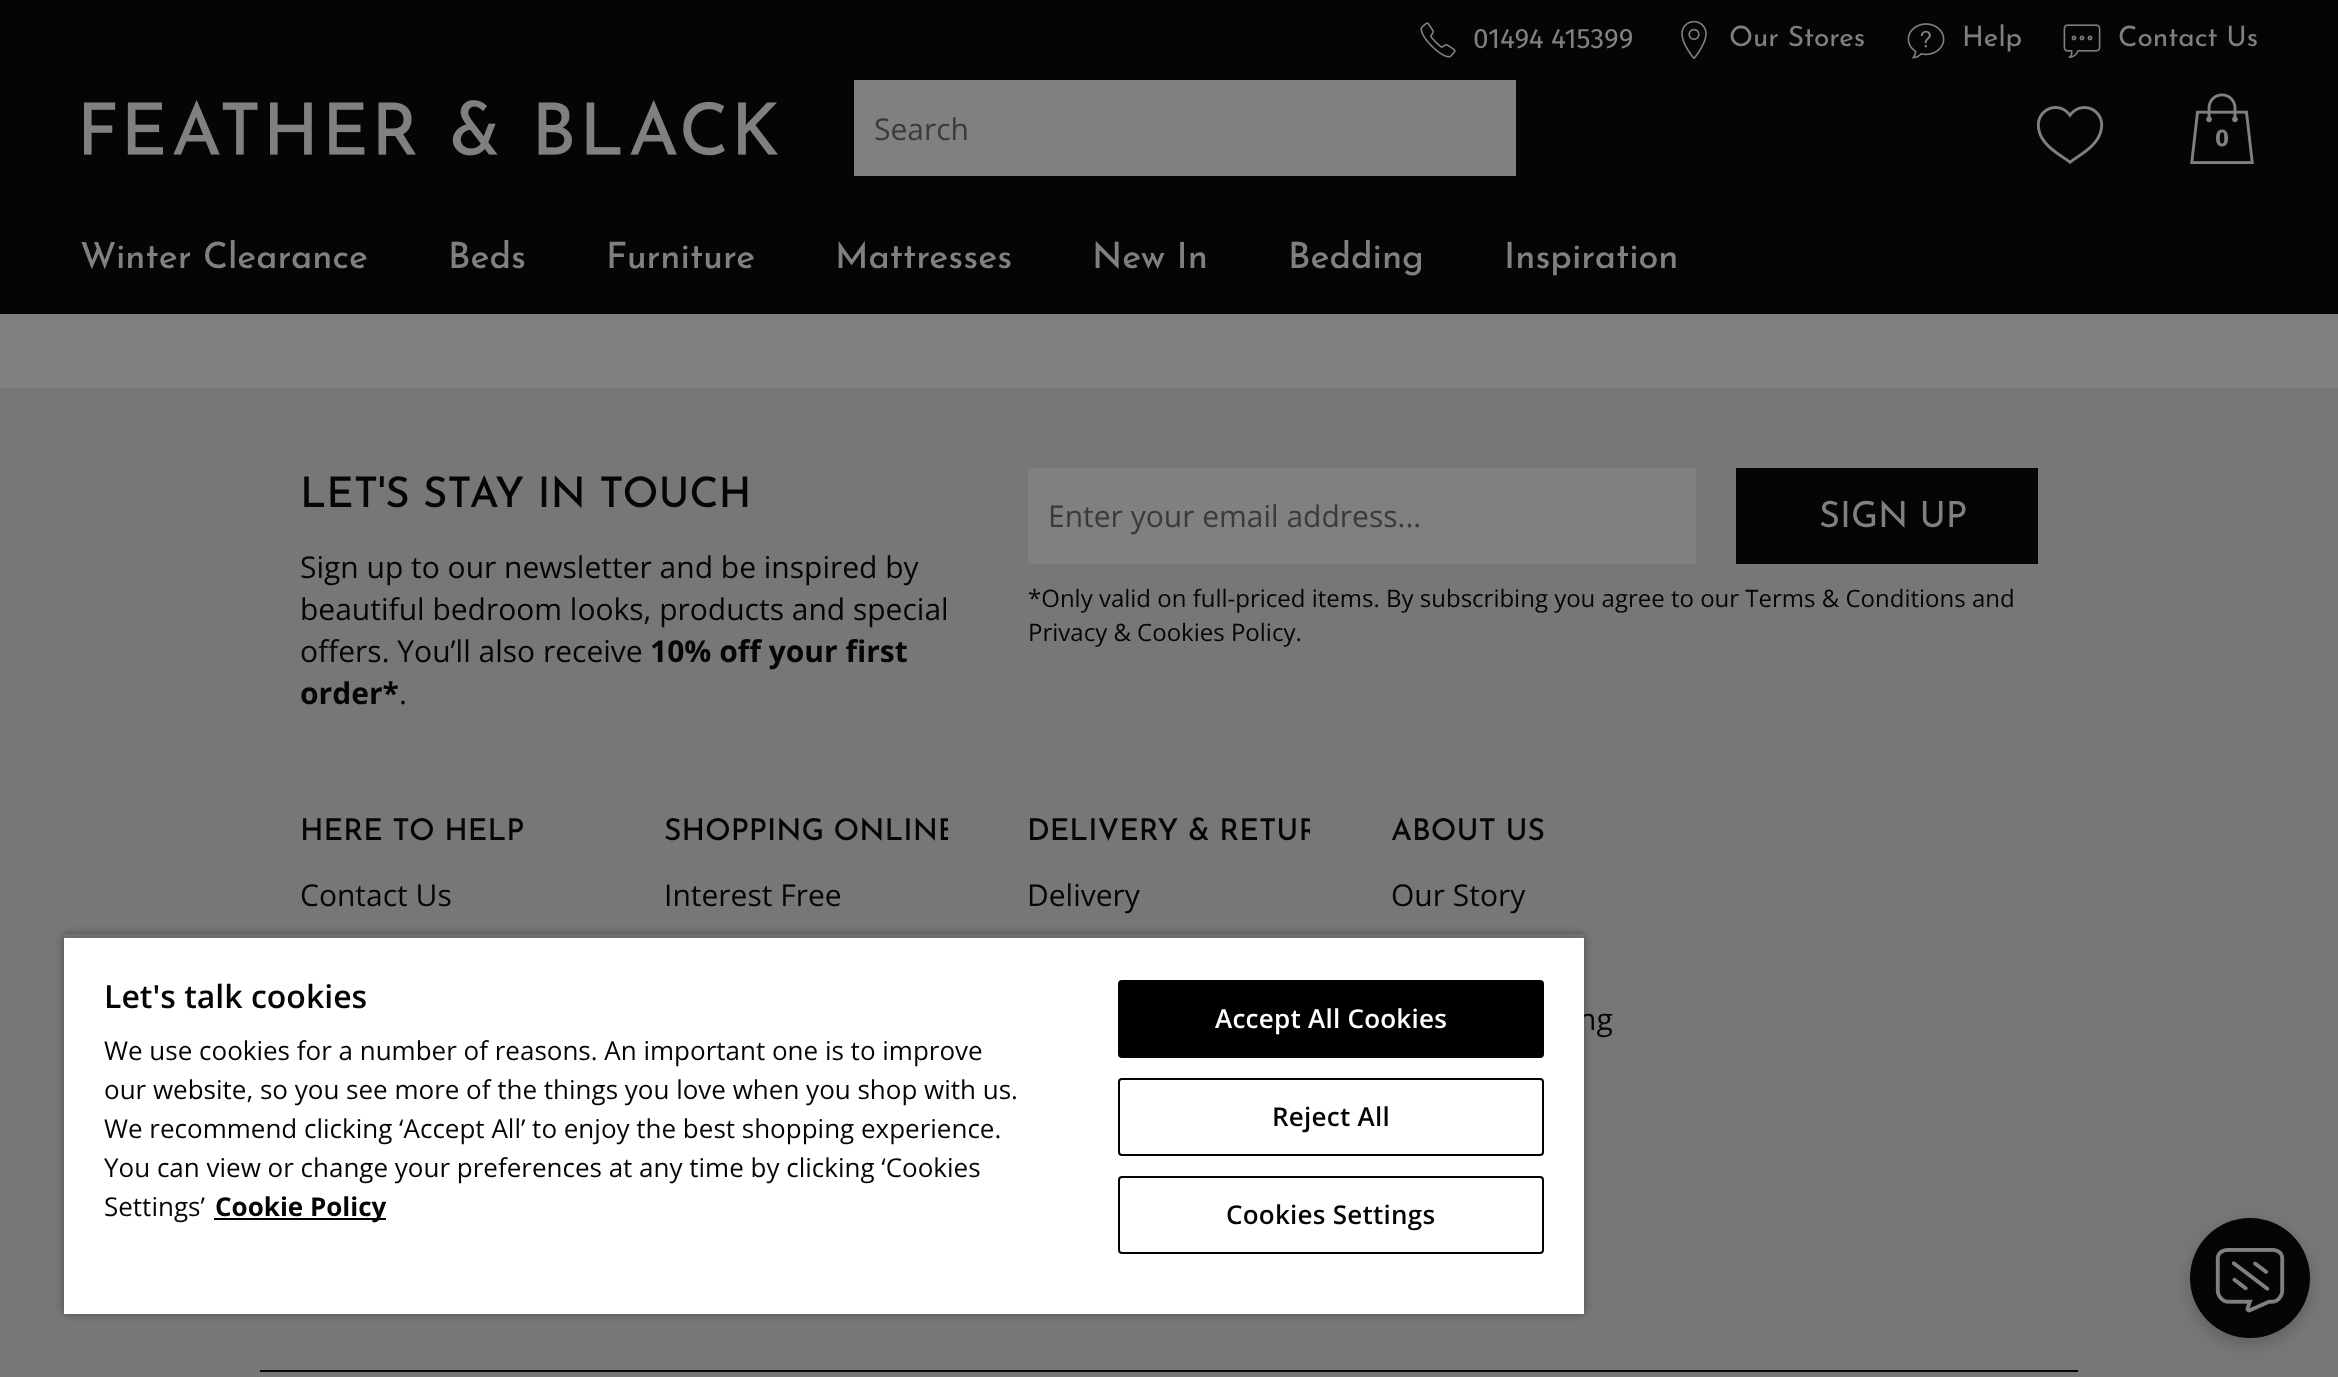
<!DOCTYPE html>
<meta charset="utf-8">
<style>body { margin: 0 } canvas { display: block }</style>
<canvas id="canvas" width="2338" height="1377"></canvas>
<img id="img1" src="images/1.png" hidden>
<img id="img2" src="images/2.png" hidden>
<img id="img3" src="images/3.png" hidden>
<img id="img4" src="images/4.png" hidden>
<img id="img5" src="images/5.png" hidden>
<img id="img6" src="images/6.png" hidden>
<img id="img7" src="images/7.png" hidden>
<img id="img8" src="images/8.png" hidden>
<script>
window.onload = function () {
    const canvas = document.getElementById('canvas');
    const context = canvas.getContext('2d');
    context.miterLimit = 4;
    context.fontKerning = 'normal';

    context.fillStyle = 'rgb(128, 128, 128)';
    context.fillRect(0, 0, 2338, 1377);
    context.fillStyle = 'rgb(5, 5, 5)';
    context.fillRect(0, 0, 2338, 314);
    context.drawImage(document.getElementById('img1'), 1420, 22, 36, 36);
    context.drawImage(document.getElementById('img2'), 1681, 20, 26, 40);
    context.drawImage(document.getElementById('img3'), 1907, 23, 38, 36);
    context.drawImage(document.getElementById('img4'), 2063, 24, 38, 34);
    context.drawImage(document.getElementById('img5'), 84, 100, 694, 56);
    context.fillStyle = 'rgb(128, 128, 128)';
    context.fillRect(854, 80, 662, 96);
    context.drawImage(document.getElementById('img6'), 2036, 106, 68, 58);
    context.drawImage(document.getElementById('img7'), 2190, 93, 64, 71);
    context.fillStyle = 'rgb(119, 119, 119)';
    context.fillRect(0, 388, 2338, 989);
    context.fillStyle = 'rgb(128, 128, 128)';
    context.fillRect(1028, 468, 668, 96);
    context.fillStyle = 'rgb(5, 5, 5)';
    context.fillRect(1736, 468, 302, 96);
    context.fillRect(260, 1370, 1818, 2);
    context.fillStyle = 'rgba(0, 0, 0, 0.2)';
    context.filter = 'blur(8px)';
    context.beginPath();
    context.roundRect(2190, 1224, 120, 120, 60);
    context.fill();
    context.filter = 'none';
    context.fillStyle = 'rgb(5, 5, 5)';
    context.beginPath();
    context.arc(2250, 1278, 60, 0, 2 * Math.PI);
    context.fill();
    context.drawImage(document.getElementById('img8'), 2215, 1248, 70, 65);
    context.save();
    context.beginPath();
    context.moveTo(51, 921);
    context.lineTo(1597, 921);
    context.lineTo(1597, 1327);
    context.lineTo(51, 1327);
    context.closePath();
    context.moveTo(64, 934);
    context.lineTo(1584, 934);
    context.lineTo(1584, 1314);
    context.lineTo(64, 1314);
    context.closePath();
    context.clip('evenodd');
    context.fillStyle = 'rgba(0, 0, 0, 0.35)';
    context.filter = 'blur(4px)';
    context.beginPath();
    context.rect(64, 934, 1520, 380);
    context.fill();
    context.filter = 'none';
    context.restore();
    context.save();
    context.beginPath();
    context.rect(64, 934, 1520, 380);
    context.clip();
    context.fillStyle = 'rgba(0, 0, 0, 0.2)';
    context.filter = 'blur(4px)';
    context.beginPath();
    context.rect(64, 938, 1520, 376);
    context.fill();
    context.filter = 'none';
    context.restore();
    context.font = '28px Fira Sans';
    context.fillStyle = 'rgb(128, 128, 128)';
    context.fillText('01494 415399', 1473, 48);
    context.font = '28px Josefin Sans';
    context.fillText('Our Stores', 1729, 46);
    context.fillText('Help', 1962, 46);
    context.fillText('Contact Us', 2118, 46);
    context.font = '30px Open Sans';
    context.fillStyle = 'rgb(58, 58, 58)';
    context.fillText('Search', 874, 140);
    context.font = 'bold 24px Fira Sans';
    context.fillStyle = 'rgb(128, 128, 128)';
    context.fillText('0', 2215, 146);
    context.font = '500 36px Josefin Sans';
    context.fillText('Winter Clearance', 80, 268);
    context.fillText('Beds', 448, 268);
    context.fillText('Furniture', 606, 268);
    context.fillText('Mattresses', 835, 268);
    context.fillText('New In', 1092, 268);
    context.fillText('Bedding', 1288, 268);
    context.fillText('Inspiration', 1504, 268);
    context.font = '500 42px Josefin Sans';
    context.fillStyle = 'rgb(5, 5, 5)';
    context.fillText('LET\'S STAY IN TOUCH', 300, 507);
    context.font = '30px Open Sans';
    context.fillText('Sign up to our newsletter and be inspired by', 300, 578);
    context.fillText('beautiful bedroom looks, products and special', 300, 620);
    context.fillText('offers. You’ll also receive', 300, 662);
    context.font = 'bold 30px Open Sans';
    context.fillText('10% off your first', 650, 662);
    context.fillText('order*', 300, 704);
    context.font = '30px Open Sans';
    context.fillText('.', 399, 704);
    context.fillStyle = 'rgb(58, 58, 58)';
    context.fillText('Enter your email address...', 1048, 527);
    context.font = '36px Josefin Sans';
    context.fillStyle = 'rgb(128, 128, 128)';
    context.fillText('SIGN UP', 1819, 527);
    context.font = '24px Open Sans';
    context.fillStyle = 'rgb(5, 5, 5)';
    context.fillText('*Only valid on full-priced items. By subscribing you agree to our Terms & Conditions and', 1028, 607);
    context.fillText('Privacy & Cookies Policy.', 1028, 641);
    context.font = '500 30px Josefin Sans';
    context.fillText('HERE TO HELP', 300, 840);
    context.font = '30px Open Sans';
    context.fillText('Contact Us', 300, 906);
    context.save();
    context.beginPath();
    context.rect(664, 794, 284, 80);
    context.clip();
    context.font = '500 30px Josefin Sans';
    context.fillText('SHOPPING ONLINE', 664, 840);
    context.restore();
    context.fillText('Interest Free', 664, 906);
    context.save();
    context.beginPath();
    context.rect(1028, 794, 282, 80);
    context.clip();
    context.font = '500 30px Josefin Sans';
    context.fillText('DELIVERY & RETUR', 1027, 840);
    context.restore();
    context.fillText('Delivery', 1027, 906);
    context.font = '500 30px Josefin Sans';
    context.fillText('ABOUT US', 1391, 840);
    context.font = '30px Open Sans';
    context.fillText('Our Story', 1391, 906);
    context.fillText('ng', 1578, 1030);
    context.fillStyle = 'rgb(255, 255, 255)';
    context.fillRect(64, 938, 1520, 376);
    context.font = '600 32px Open Sans';
    context.fillStyle = 'rgb(5, 5, 5)';
    context.fillText('Let\'s talk cookies', 104, 1008);
    context.font = '26px Open Sans';
    context.fillText('We use cookies for a number of reasons. An important one is to improve', 104, 1060);
    context.fillText('our website, so you see more of the things you love when you shop with us.', 104, 1099);
    context.fillText('We recommend clicking ‘Accept All’ to enjoy the best shopping experience.', 104, 1138);
    context.fillText('You can view or change your preferences at any time by clicking ‘Cookies', 104, 1177);
    context.fillText('Settings’', 104, 1216);
    context.fillStyle = 'rgb(0, 0, 0)';
    context.fillRect(214, 1218, 172, 2);
    context.font = 'bold 26px Open Sans';
    context.fillStyle = 'rgb(5, 5, 5)';
    context.fillText('Cookie Policy', 215, 1216);
    context.fillStyle = 'rgb(0, 0, 0)';
    context.beginPath();
    context.roundRect(1119, 981, 424, 76, 3);
    context.fill();
    context.strokeStyle = 'rgb(0, 0, 0)';
    context.lineWidth = 2;
    context.stroke();
    context.letterSpacing = '0.25px';
    context.font = '600 26px Open Sans';
    context.fillStyle = 'rgb(255, 255, 255)';
    context.fillText('Accept All Cookies', 1215, 1028);
    context.beginPath();
    context.roundRect(1119, 1079, 424, 76, 3);
    context.stroke();
    context.fillStyle = 'rgb(5, 5, 5)';
    context.fillText('Reject All', 1272, 1126);
    context.beginPath();
    context.roundRect(1119, 1177, 424, 76, 3);
    context.stroke();
    context.fillText('Cookies Settings', 1226, 1224);
};
</script>
